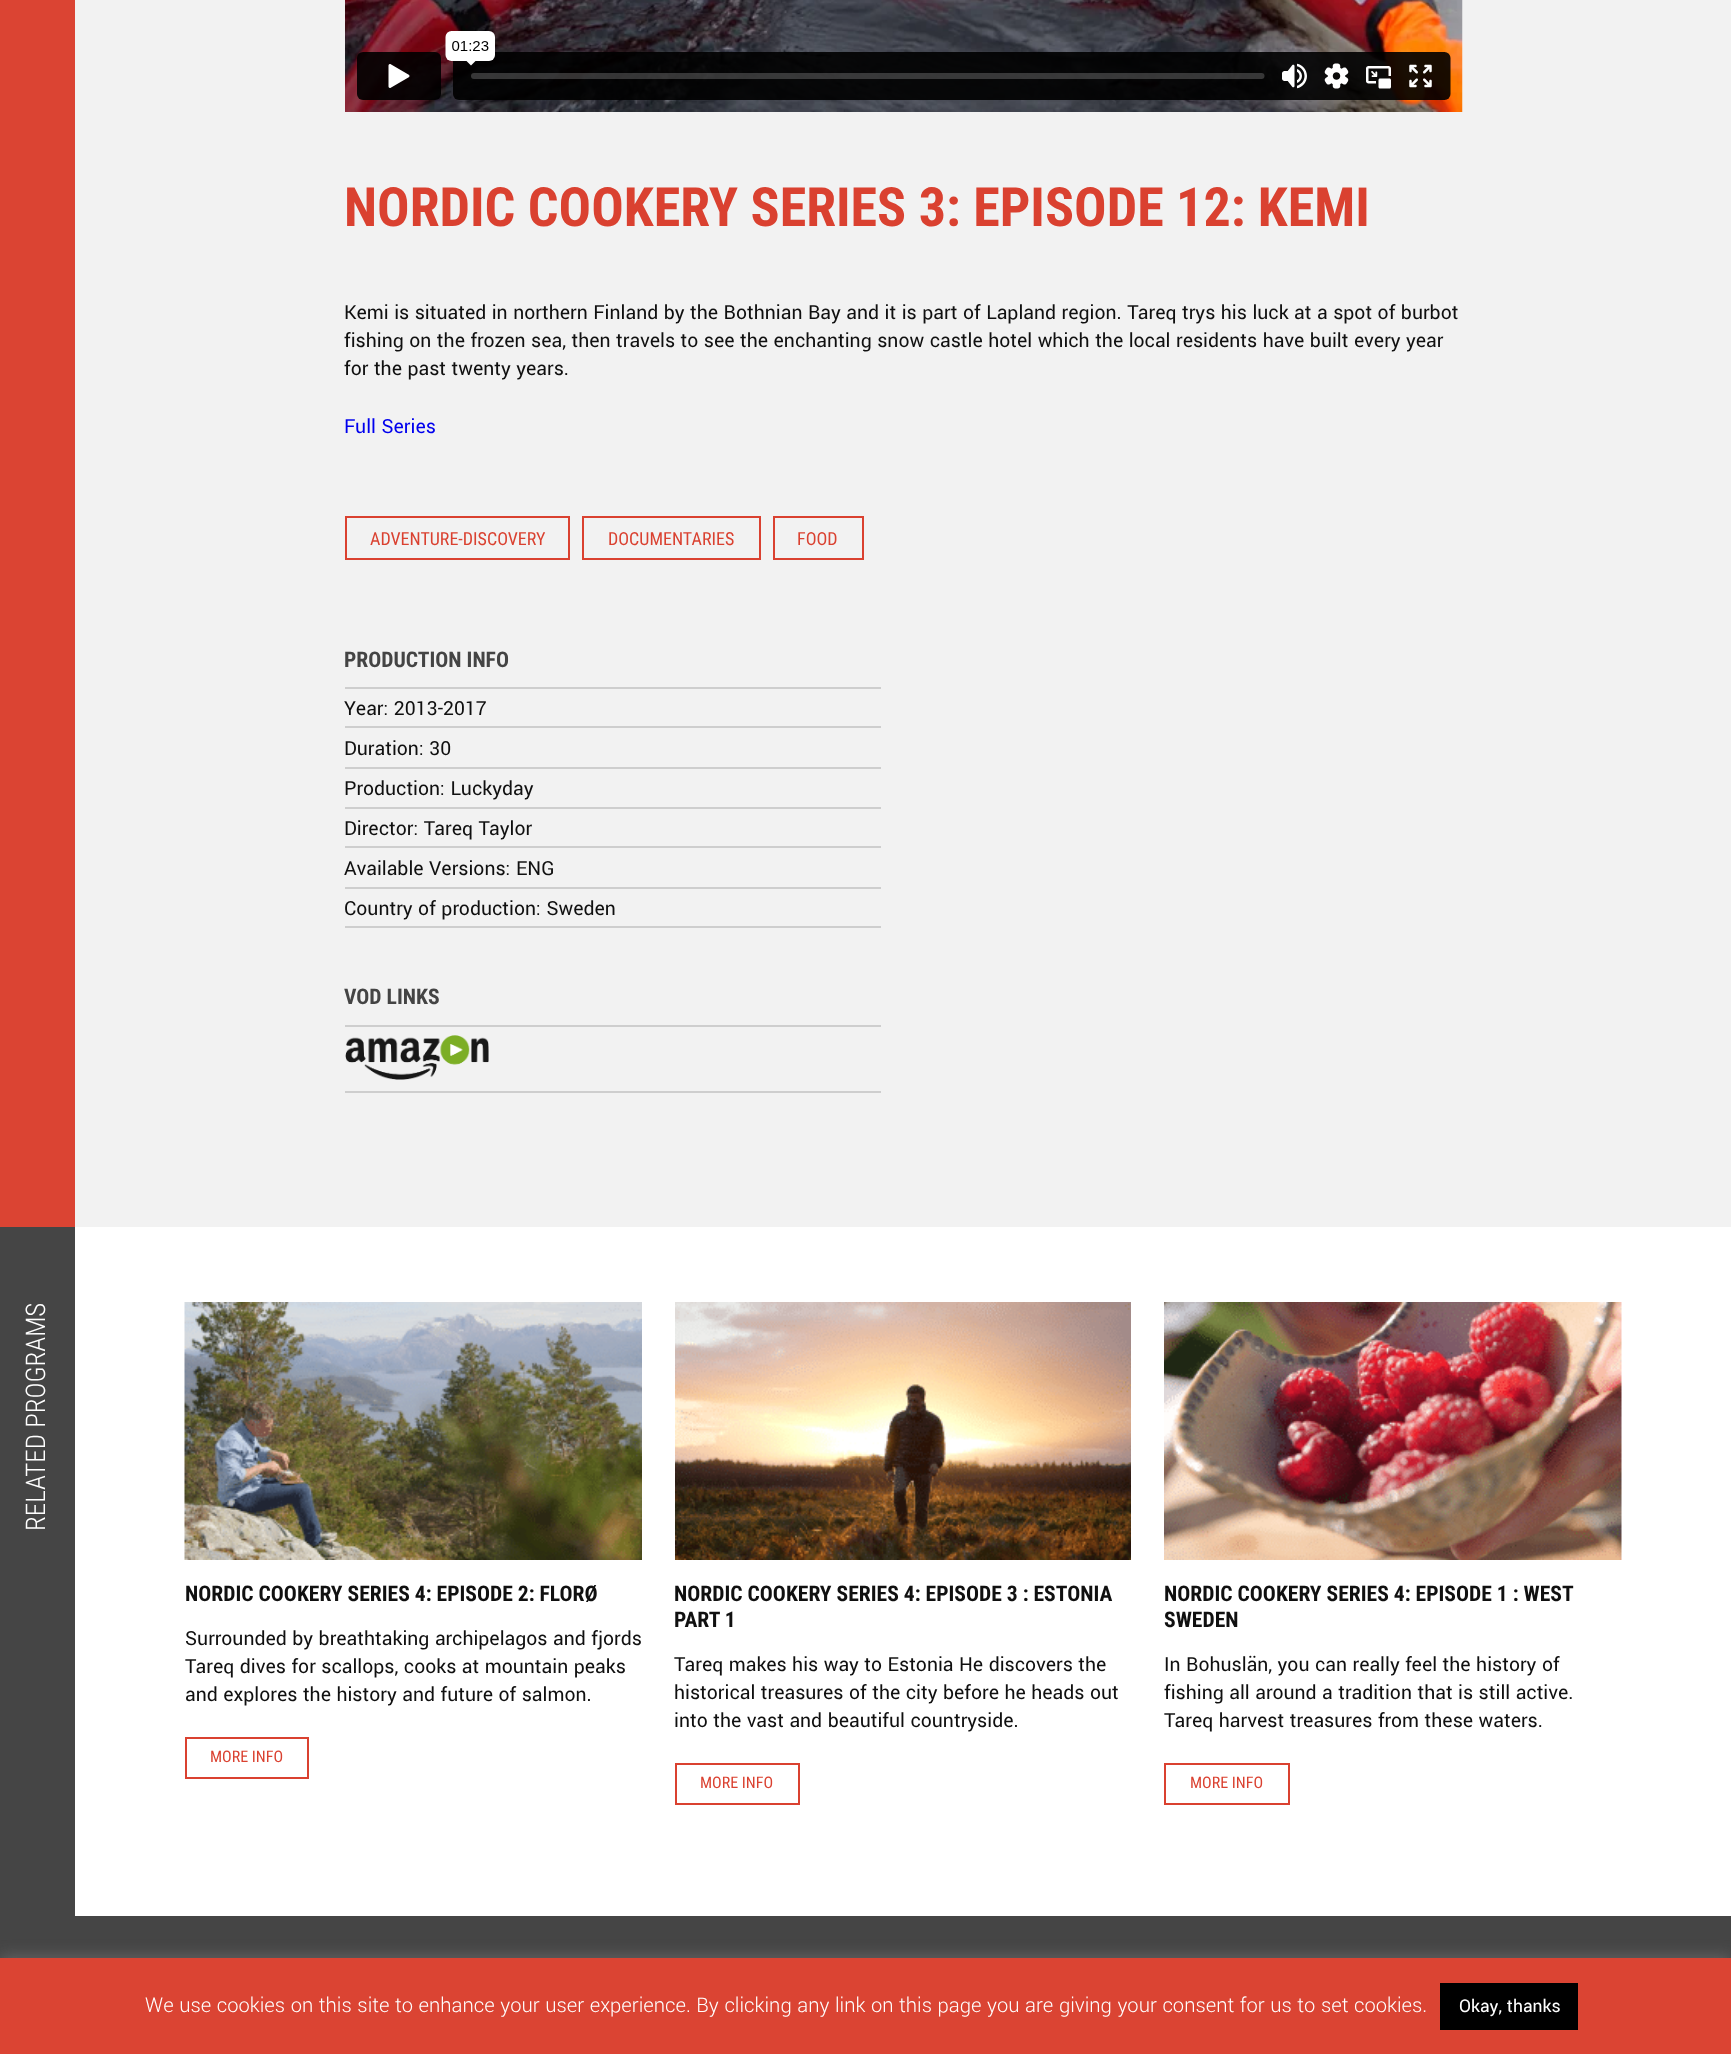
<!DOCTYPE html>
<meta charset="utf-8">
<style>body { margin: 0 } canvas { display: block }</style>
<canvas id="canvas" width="1731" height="2054"></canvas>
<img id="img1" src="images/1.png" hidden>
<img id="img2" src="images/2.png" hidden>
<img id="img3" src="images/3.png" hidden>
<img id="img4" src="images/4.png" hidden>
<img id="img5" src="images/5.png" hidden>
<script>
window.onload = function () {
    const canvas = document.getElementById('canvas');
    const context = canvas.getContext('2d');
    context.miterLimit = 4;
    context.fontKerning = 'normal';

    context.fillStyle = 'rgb(255, 255, 255)';
    context.fillRect(0, 0, 1731, 2054);
    context.fillStyle = 'rgb(219, 68, 51)';
    context.fillRect(0, 0, 75, 1227);
    context.fillStyle = 'rgb(242, 242, 242)';
    context.fillRect(75, 0, 1656, 1227);
    context.drawImage(document.getElementById('img1'), 345, 0, 1118, 112);
    context.strokeStyle = 'rgb(218, 65, 48)';
    context.lineWidth = 2;
    context.strokeRect(346, 517, 223, 42);
    context.strokeRect(583, 517, 177, 42);
    context.strokeRect(774, 517, 89, 42);
    context.fillStyle = 'rgb(206, 206, 206)';
    context.fillRect(345, 687, 536, 2);
    context.fillRect(345, 726, 536, 2);
    context.fillRect(345, 767, 536, 2);
    context.fillRect(345, 807, 536, 2);
    context.fillRect(345, 846, 536, 2);
    context.fillRect(345, 887, 536, 2);
    context.fillRect(345, 926, 536, 2);
    context.fillRect(345, 1025, 536, 2);
    context.fillRect(345, 1091, 536, 2);
    context.drawImage(document.getElementById('img2'), 345, 1035, 144, 45);
    context.fillStyle = 'rgb(69, 69, 69)';
    context.fillRect(0, 1227, 75, 689);
    context.drawImage(document.getElementById('img3'), 184, 1302, 458, 258);
    context.strokeRect(186, 1738, 122, 40);
    context.drawImage(document.getElementById('img4'), 675, 1302, 456, 258);
    context.strokeRect(676, 1764, 123, 40);
    context.drawImage(document.getElementById('img5'), 1164, 1302, 458, 258);
    context.strokeRect(1165, 1764, 124, 40);
    context.fillRect(0, 1916, 1731, 42);
    context.fillStyle = 'rgba(172, 171, 171, 0.3)';
    context.filter = 'blur(7.5px)';
    context.beginPath();
    context.rect(0, 1956, 1731, 98);
    context.fill();
    context.filter = 'none';
    context.fillStyle = 'rgb(219, 68, 51)';
    context.fillRect(0, 1958, 1731, 96);
    context.fillStyle = 'rgb(0, 0, 0)';
    context.fillRect(1440, 1983, 138, 47);
    context.font = 'bold 54px Roboto Condensed';
    context.fillStyle = 'rgb(218, 65, 48)';
    context.fillText('NORDIC COOKERY SERIES 3: EPISODE 12: KEMI', 344, 226);
    context.font = '21.6px Yantramanav';
    context.fillStyle = 'rgb(16, 16, 16)';
    context.fillText('Kemi is situated in northern Finland by the Bothnian Bay and it is part of Lapland region. Tareq trys his luck at a spot of burbot', 344, 319);
    context.fillText('fishing on the frozen sea, then travels to see the enchanting snow castle hotel which the local residents have built every year', 344, 347);
    context.fillText('for the past twenty years.', 344, 375);
    context.fillStyle = 'rgb(0, 0, 238)';
    context.fillText('Full Series', 344, 433);
    context.font = '18px Roboto Condensed';
    context.fillStyle = 'rgb(218, 65, 48)';
    context.fillText('ADVENTURE-DISCOVERY', 370, 545);
    context.fillText('DOCUMENTARIES', 608, 545);
    context.fillText('FOOD', 797, 545);
    context.font = 'bold 21.6px Roboto Condensed';
    context.fillStyle = 'rgb(68, 68, 68)';
    context.fillText('PRODUCTION INFO', 344, 667);
    context.font = '21.6px Yantramanav';
    context.fillStyle = 'rgb(16, 16, 16)';
    context.fillText('Year: 2013-2017', 344, 715);
    context.fillText('Duration: 30', 344, 755);
    context.fillText('Production: Luckyday', 344, 795);
    context.fillText('Director: Tareq Taylor', 344, 835);
    context.fillText('Available Versions: ENG', 344, 875);
    context.fillText('Country of production: Sweden', 344, 915);
    context.font = 'bold 21.6px Roboto Condensed';
    context.fillStyle = 'rgb(68, 68, 68)';
    context.fillText('VOD LINKS', 344, 1004);
    context.font = '300 27px Roboto Condensed';
    context.fillStyle = 'rgb(255, 255, 255)';
    context.save();
    context.translate(45, 1531);
    context.rotate(-90 * Math.PI / 180);
    context.fillText('RELATED PROGRAMS', 0, 0);
    context.restore();
    context.font = 'bold 21.6px Roboto Condensed';
    context.fillStyle = 'rgb(16, 16, 16)';
    context.fillText('NORDIC COOKERY SERIES 4: EPISODE 2: FLORØ', 185, 1601);
    context.font = '21.6px Yantramanav';
    context.fillText('Surrounded by breathtaking archipelagos and fjords', 185, 1645);
    context.fillText('Tareq dives for scallops, cooks at mountain peaks', 185, 1673);
    context.fillText('and explores the history and future of salmon.', 185, 1701);
    context.font = '16px Roboto Condensed';
    context.fillStyle = 'rgb(218, 65, 48)';
    context.fillText('MORE INFO', 210, 1762);
    context.font = 'bold 21.6px Roboto Condensed';
    context.fillStyle = 'rgb(16, 16, 16)';
    context.fillText('NORDIC COOKERY SERIES 4: EPISODE 3 : ESTONIA', 674, 1601);
    context.fillText('PART 1', 674, 1627);
    context.font = '21.6px Yantramanav';
    context.fillText('Tareq makes his way to Estonia He discovers the', 674, 1671);
    context.fillText('historical treasures of the city before he heads out', 674, 1699);
    context.fillText('into the vast and beautiful countryside.', 674, 1727);
    context.font = '16px Roboto Condensed';
    context.fillStyle = 'rgb(218, 65, 48)';
    context.fillText('MORE INFO', 700, 1788);
    context.font = 'bold 21.6px Roboto Condensed';
    context.fillStyle = 'rgb(16, 16, 16)';
    context.fillText('NORDIC COOKERY SERIES 4: EPISODE 1 : WEST', 1164, 1601);
    context.fillText('SWEDEN', 1164, 1627);
    context.font = '21.6px Yantramanav';
    context.fillText('In Bohuslän, you can really feel the history of', 1164, 1671);
    context.fillText('fishing all around a tradition that is still active.', 1164, 1699);
    context.fillText('Tareq harvest treasures from these waters.', 1164, 1727);
    context.font = '16px Roboto Condensed';
    context.fillStyle = 'rgb(218, 65, 48)';
    context.fillText('MORE INFO', 1190, 1788);
    context.font = '300 22.5px Yantramanav';
    context.fillStyle = 'rgb(255, 255, 255)';
    context.fillText('We use cookies on this site to enhance your user experience. By clicking any link on this page you are giving your consent for us to set cookies.', 145, 2012);
    context.font = '19.5px Yantramanav';
    context.fillText('Okay, thanks', 1459, 2012);
};
</script>
